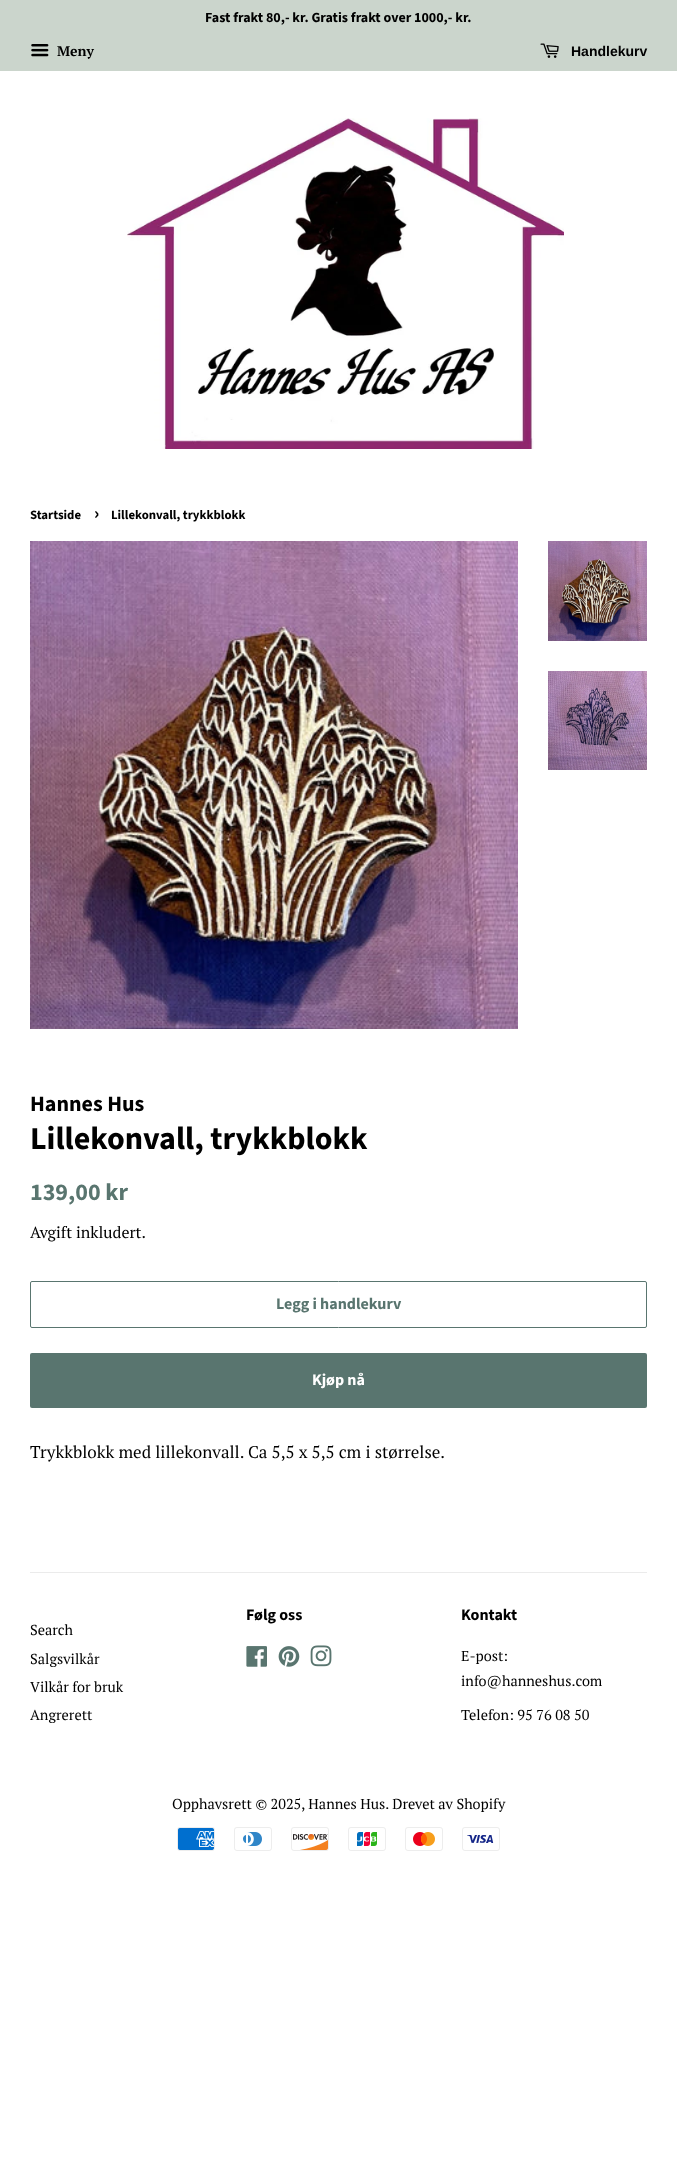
<!DOCTYPE html>
<meta charset="utf-8">
<style>body { margin: 0 } canvas { display: block }</style>
<canvas id="canvas" width="677" height="2165"></canvas>
<img id="img1" src="images/1.png" hidden>
<img id="img2" src="images/2.png" hidden>
<img id="img3" src="images/3.png" hidden>
<img id="img4" src="images/4.png" hidden>
<img id="img5" src="images/5.png" hidden>
<img id="img6" src="images/6.png" hidden>
<img id="img7" src="images/7.png" hidden>
<img id="img8" src="images/8.png" hidden>
<img id="img9" src="images/9.png" hidden>
<img id="img10" src="images/10.png" hidden>
<img id="img11" src="images/11.png" hidden>
<img id="img12" src="images/12.png" hidden>
<img id="img13" src="images/13.png" hidden>
<img id="img14" src="images/14.png" hidden>
<img id="img15" src="images/15.png" hidden>
<script>
window.onload = function () {
    const canvas = document.getElementById('canvas');
    const context = canvas.getContext('2d');
    context.miterLimit = 4;
    context.fontKerning = 'normal';

    context.fillStyle = 'rgb(255, 255, 255)';
    context.fillRect(0, 0, 677, 2165);
    context.fillStyle = 'rgb(203, 213, 204)';
    context.fillRect(0, 0, 677, 71);
    context.drawImage(document.getElementById('img1'), 31, 44, 18, 13);
    context.drawImage(document.getElementById('img2'), 540, 43, 19, 15);
    context.drawImage(document.getElementById('img3'), 127, 118, 437, 331);
    context.drawImage(document.getElementById('img4'), 30, 541, 488, 488);
    context.drawImage(document.getElementById('img5'), 548, 541, 99, 100);
    context.drawImage(document.getElementById('img6'), 548, 671, 99, 99);
    context.beginPath();
    context.roundRect(30.5, 1281.5, 616, 46, 1.5);
    context.strokeStyle = 'rgb(89, 117, 111)';
    context.stroke();
    context.fillStyle = 'rgb(89, 117, 111)';
    context.beginPath();
    context.roundRect(30, 1353, 617, 55, 2);
    context.fill();
    context.fillStyle = 'rgb(235, 235, 235)';
    context.fillRect(30, 1572, 617, 1);
    context.drawImage(document.getElementById('img7'), 246, 1646, 21, 21);
    context.drawImage(document.getElementById('img8'), 278, 1646, 22, 21);
    context.drawImage(document.getElementById('img9'), 310, 1645, 22, 22);
    context.drawImage(document.getElementById('img10'), 177, 1827, 38, 24);
    context.drawImage(document.getElementById('img11'), 234, 1827, 38, 24);
    context.drawImage(document.getElementById('img12'), 291, 1827, 38, 24);
    context.drawImage(document.getElementById('img13'), 348, 1827, 38, 24);
    context.drawImage(document.getElementById('img14'), 405, 1827, 38, 24);
    context.drawImage(document.getElementById('img15'), 462, 1827, 38, 24);
    context.font = 'bold 14px Source Sans Pro';
    context.fillStyle = 'rgb(0, 0, 0)';
    context.fillText('Fast frakt 80,- kr. Gratis frakt over 1000,- kr.', 205, 22);
    context.font = 'bold 14px PT Serif';
    context.fillText('Meny', 57, 56);
    context.font = 'bold 14px Liberation Sans';
    context.fillText('Handlekurv', 571, 56);
    context.font = 'bold 12.75px Source Sans Pro';
    context.fillText('Startside', 30, 519);
    context.font = 'bold 18px Source Sans Pro';
    context.fillText('›', 94, 519);
    context.font = 'bold 12.75px Source Sans Pro';
    context.fillText('Lillekonvall, trykkblokk', 111, 519);
    context.font = 'bold 22px Source Sans Pro';
    context.fillText('Hannes Hus', 30, 1111);
    context.font = 'bold 32px Source Sans Pro';
    context.fillText('Lillekonvall, trykkblokk', 30, 1149);
    context.font = 'bold 24px Source Sans Pro';
    context.fillStyle = 'rgb(89, 117, 111)';
    context.fillText('139,00 kr', 30, 1200);
    context.font = '16px PT Serif';
    context.fillStyle = 'rgb(0, 0, 0)';
    context.fillText('Avgift inkludert.', 30, 1238);
    context.font = 'bold 16px Source Sans Pro';
    context.fillStyle = 'rgb(89, 117, 111)';
    context.fillText('Legg i handlekurv', 276, 1309);
    context.fillStyle = 'rgb(255, 255, 255)';
    context.fillText('Kjøp nå', 312, 1385);
    context.font = '17px PT Serif';
    context.fillStyle = 'rgb(0, 0, 0)';
    context.fillText('Trykkblokk med lillekonvall. Ca 5,5 x 5,5 cm i størrelse.', 30, 1458);
    context.font = '14.45px PT Serif';
    context.fillText('Search', 30, 1635);
    context.fillText('Salgsvilkår', 30, 1664);
    context.fillText('Vilkår for bruk', 30, 1692);
    context.fillText('Angrerett', 30, 1720);
    context.font = 'bold 16px Source Sans Pro';
    context.fillText('Følg oss', 246, 1620);
    context.fillText('Kontakt', 461, 1620);
    context.font = '14.45px PT Serif';
    context.fillText('E-post:', 461, 1661);
    context.fillText('info@hanneshus.com', 461, 1686);
    context.fillText('Telefon: 95 76 08 50', 461, 1720);
    context.fillText('Opphavsrett © 2025, Hannes Hus. Drevet av Shopify', 172, 1809);
};
</script>
